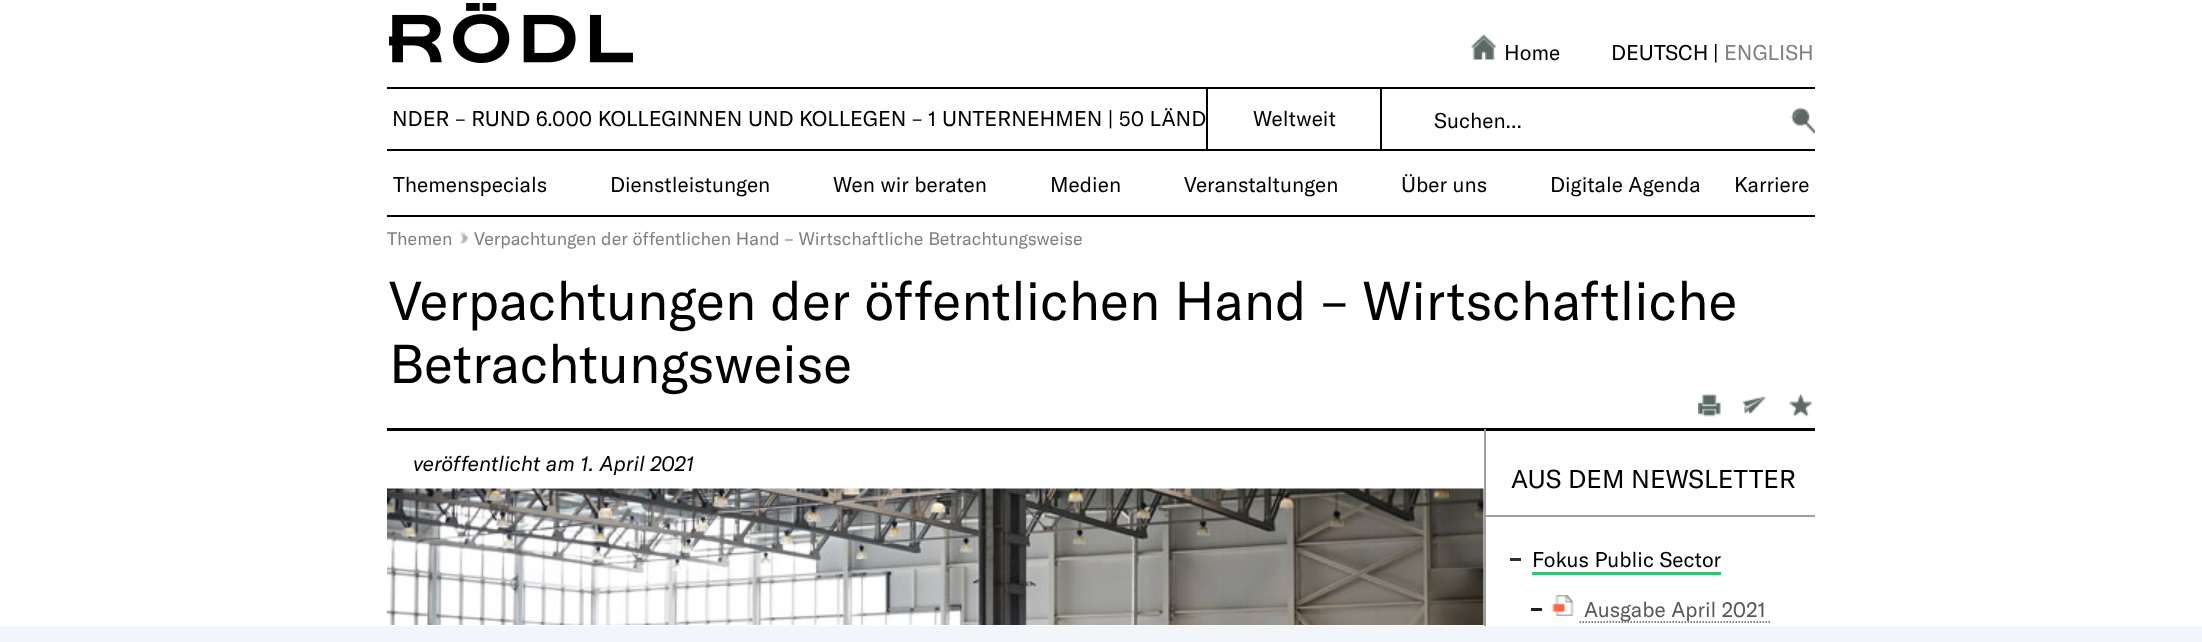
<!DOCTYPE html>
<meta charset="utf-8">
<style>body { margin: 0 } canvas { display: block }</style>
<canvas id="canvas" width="2202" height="642"></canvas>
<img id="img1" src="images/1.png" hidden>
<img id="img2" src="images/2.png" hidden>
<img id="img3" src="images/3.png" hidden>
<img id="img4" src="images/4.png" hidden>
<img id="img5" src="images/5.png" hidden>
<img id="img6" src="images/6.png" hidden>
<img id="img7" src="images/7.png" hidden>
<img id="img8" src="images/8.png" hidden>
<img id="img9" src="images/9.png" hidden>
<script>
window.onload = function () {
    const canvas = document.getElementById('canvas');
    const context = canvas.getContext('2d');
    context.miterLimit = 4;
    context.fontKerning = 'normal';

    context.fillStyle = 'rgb(242, 245, 250)';
    context.fillRect(0, 0, 2202, 642);
    context.fillStyle = 'rgb(255, 255, 255)';
    context.fillRect(0, 0, 2202, 626);
    context.drawImage(document.getElementById('img1'), 389, 3, 244, 60);
    context.drawImage(document.getElementById('img2'), 1471, 34, 26, 26);
    context.fillStyle = 'rgb(0, 0, 0)';
    context.fillRect(387, 87, 1428, 2);
    context.fillRect(387, 149, 1428, 2);
    context.fillRect(1206, 87, 2, 63);
    context.fillRect(1380, 87, 2, 63);
    context.drawImage(document.getElementById('img3'), 1790, 107, 25, 27);
    context.fillRect(387, 215, 1428, 2);
    context.drawImage(document.getElementById('img4'), 460, 231, 10, 13);
    context.fillRect(387, 428, 1428, 1);
    context.drawImage(document.getElementById('img5'), 1698, 394, 23, 23);
    context.drawImage(document.getElementById('img6'), 1743, 396, 23, 18);
    context.drawImage(document.getElementById('img7'), 1789, 394, 23, 23);
    context.fillRect(387, 429, 1428, 2);
    context.drawImage(document.getElementById('img8'), 387, 488, 1097, 137);
    context.fillStyle = 'rgb(157, 157, 156)';
    context.fillRect(1484, 429, 2, 197);
    context.fillRect(1485, 515, 330, 2);
    context.fillStyle = 'rgb(47, 47, 47)';
    context.fillRect(1510, 558, 11, 3);
    context.fillStyle = 'rgb(58, 190, 124)';
    context.fillRect(1532, 572, 189, 3);
    context.fillStyle = 'rgb(31, 31, 31)';
    context.fillRect(1531, 608, 11, 3);
    context.drawImage(document.getElementById('img9'), 1552, 595, 22, 21);
    context.beginPath();
    context.moveTo(1579.5, 622);
    context.lineTo(1771.5, 622);
    context.strokeStyle = 'rgb(88, 88, 90)';
    context.lineWidth = 1.5;
    context.setLineDash([1.5, 1.5]);
    context.stroke();
    context.font = '21px GT America';
    context.fillStyle = 'rgb(0, 0, 0)';
    context.fillText('Home', 1504, 60);
    context.fillText('DEUTSCH', 1611, 60);
    context.fillText('|', 1713, 60);
    context.fillStyle = 'rgb(128, 128, 128)';
    context.fillText('ENGLISH', 1724, 60);
    context.fillStyle = 'rgb(0, 0, 0)';
    context.fillText('NDER – RUND 6.000 KOLLEGINNEN UND KOLLEGEN – 1 UNTERNEHMEN | 50 LÄND', 392, 126);
    context.fillText('Weltweit', 1253, 126);
    context.fillText('Suchen...', 1434, 128);
    context.fillText('Themenspecials', 393, 192);
    context.fillText('Dienstleistungen', 610, 192);
    context.fillText('Wen wir beraten', 833, 192);
    context.fillText('Medien', 1050, 192);
    context.fillText('Veranstaltungen', 1184, 192);
    context.fillText('Über uns', 1401, 192);
    context.fillText('Digitale Agenda', 1550, 192);
    context.fillText('Karriere', 1734, 192);
    context.font = '18px GT America';
    context.fillStyle = 'rgb(128, 128, 128)';
    context.fillText('Themen', 387, 245);
    context.fillText('Verpachtungen der öffentlichen Hand – Wirtschaftliche Betrachtungsweise', 474, 245);
    context.font = '54px GT America';
    context.fillStyle = 'rgb(0, 0, 0)';
    context.fillText('Verpachtungen der öffentlichen Hand – Wirtschaftliche', 389, 320);
    context.fillText('Betrachtungsweise', 389, 383);
    context.font = 'italic 21px GT America';
    context.fillText('veröffentlicht am 1. April 2021', 413, 471);
    context.font = '25.5px GT America';
    context.fillText('AUS DEM NEWSLETTER', 1511, 488);
    context.font = '21px GT America';
    context.fillText('Fokus Public Sector', 1532, 567);
    context.fillStyle = 'rgb(88, 88, 90)';
    context.fillText('Ausgabe April 2021', 1584, 617);
};
</script>
